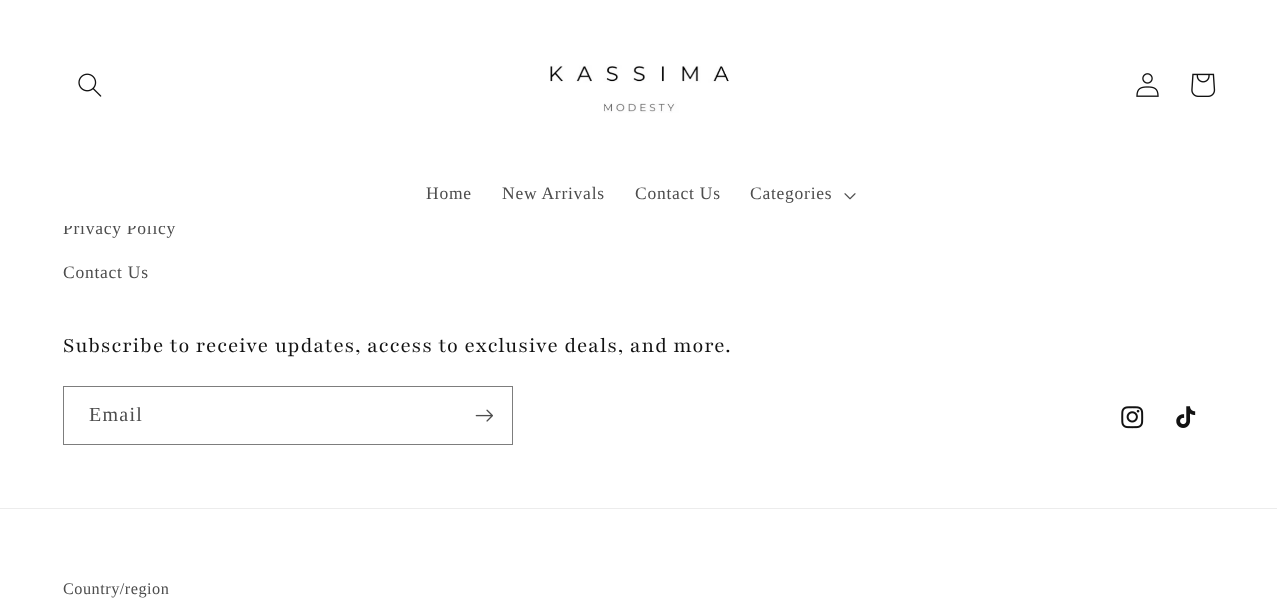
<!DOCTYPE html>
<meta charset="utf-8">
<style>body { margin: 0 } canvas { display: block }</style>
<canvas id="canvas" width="1277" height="610"></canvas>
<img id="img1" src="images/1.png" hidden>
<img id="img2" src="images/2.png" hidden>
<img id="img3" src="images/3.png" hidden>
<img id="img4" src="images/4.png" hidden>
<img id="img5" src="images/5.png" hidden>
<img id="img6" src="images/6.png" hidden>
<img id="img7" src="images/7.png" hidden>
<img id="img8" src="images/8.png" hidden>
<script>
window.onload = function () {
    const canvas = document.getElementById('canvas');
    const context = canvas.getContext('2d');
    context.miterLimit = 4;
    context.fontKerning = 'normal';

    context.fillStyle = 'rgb(255, 255, 255)';
    context.fillRect(0, 0, 1277, 610);
    context.drawImage(document.getElementById('img1'), 78, 73, 24, 24);
    context.drawImage(document.getElementById('img2'), 550, 65, 179, 48);
    context.drawImage(document.getElementById('img3'), 1136, 73, 23, 24);
    context.drawImage(document.getElementById('img4'), 1191, 73, 25, 24);
    context.drawImage(document.getElementById('img5'), 844, 193, 12, 7);
    context.strokeStyle = 'rgb(125, 125, 125)';
    context.strokeRect(63.5, 386.5, 449, 58);
    context.drawImage(document.getElementById('img6'), 475, 409, 18, 13);
    context.drawImage(document.getElementById('img7'), 1121, 406, 23, 23);
    context.drawImage(document.getElementById('img8'), 1176, 406, 20, 22);
    context.fillStyle = 'rgb(236, 236, 236)';
    context.fillRect(0, 508, 1277, 1);
    context.letterSpacing = '0.75px';
    context.font = '17.5px Liberation Serif';
    context.fillStyle = 'rgb(77, 77, 77)';
    context.fillText('Home', 426, 199);
    context.fillText('New Arrivals', 502, 199);
    context.fillText('Contact Us', 635, 199);
    context.fillText('Categories', 750, 199);
    context.fillText('Privacy Policy', 63, 234);
    context.fillStyle = 'rgb(255, 255, 255)';
    context.fillRect(63, 221, 101, 5);
    context.fillStyle = 'rgb(77, 77, 77)';
    context.fillText('Contact Us', 63, 278);
    context.font = '22.5px Playfair';
    context.fillStyle = 'rgb(18, 18, 18)';
    context.fillText('Subscribe to receive updates, access to exclusive deals, and more.', 63, 352);
    context.letterSpacing = '1.25px';
    context.font = '20px Liberation Serif';
    context.fillStyle = 'rgb(77, 77, 77)';
    context.fillText('Email', 89, 421);
    context.letterSpacing = '0.5px';
    context.font = '16.25px Liberation Serif';
    context.fillText('Country/region', 63, 594);
};
</script>
